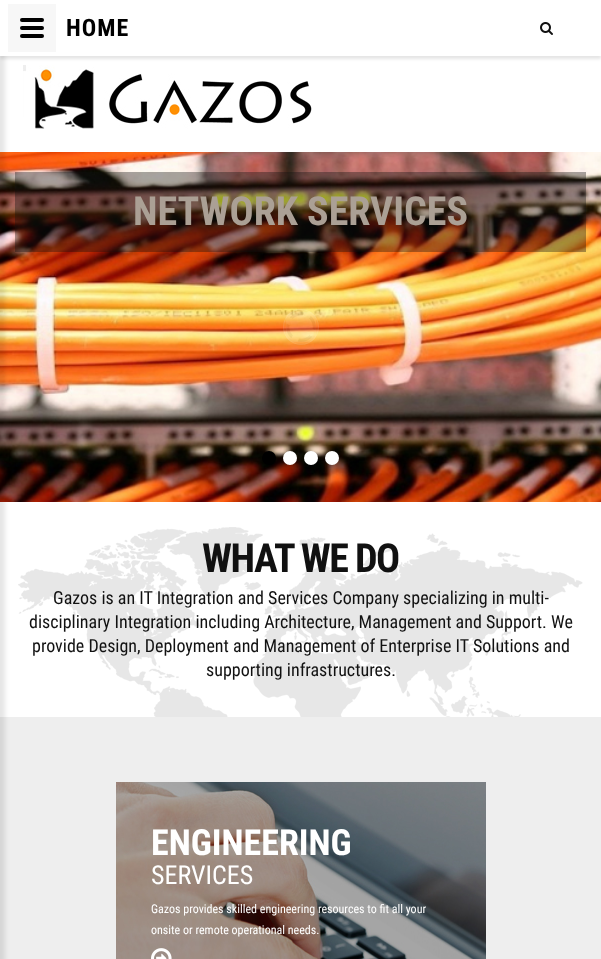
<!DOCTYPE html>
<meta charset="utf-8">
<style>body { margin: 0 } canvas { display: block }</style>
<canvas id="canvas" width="601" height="959"></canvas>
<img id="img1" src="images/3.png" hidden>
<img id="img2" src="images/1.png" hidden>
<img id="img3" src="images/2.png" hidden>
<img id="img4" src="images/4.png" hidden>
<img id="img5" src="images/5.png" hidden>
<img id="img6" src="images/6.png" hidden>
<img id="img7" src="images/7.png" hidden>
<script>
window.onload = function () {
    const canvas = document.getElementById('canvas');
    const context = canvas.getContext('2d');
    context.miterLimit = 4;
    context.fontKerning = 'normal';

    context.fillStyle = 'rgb(255, 255, 255)';
    context.fillRect(0, 0, 601, 959);
    context.drawImage(document.getElementById('img1'), 0, 152, 601, 350);
    context.fillStyle = 'rgb(238, 238, 238)';
    context.fillRect(0, 717, 601, 242);
    context.fillStyle = 'rgba(0, 0, 0, 0.1)';
    context.filter = 'blur(2.5px)';
    context.beginPath();
    context.rect(-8, -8, 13, 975);
    context.fill();
    context.filter = 'none';
    context.filter = 'blur(1.5px)';
    context.beginPath();
    context.rect(0, 3, 601, 56);
    context.fill();
    context.filter = 'none';
    context.fillStyle = 'rgb(255, 255, 255)';
    context.fillRect(0, 0, 601, 56);
    context.fillStyle = 'rgb(247, 247, 247)';
    context.fillRect(8, 4, 48, 48);
    context.fillStyle = 'rgb(0, 0, 0)';
    context.beginPath();
    context.roundRect(20, 26, 24, 4, 2);
    context.fill();
    context.beginPath();
    context.roundRect(20, 18, 24, 4, 2);
    context.fill();
    context.beginPath();
    context.roundRect(20, 34, 24, 4, 2);
    context.fill();
    context.drawImage(document.getElementById('img2'), 540, 22, 13, 13);
    context.drawImage(document.getElementById('img3'), 23, 65, 289, 64);
    context.fillStyle = 'rgba(17, 17, 17, 0.37)';
    context.fillRect(15, 172, 571, 80);
    context.fillStyle = 'rgba(255, 255, 255, 0.07)';
    context.beginPath();
    context.arc(301, 327, 18, 0, 2 * Math.PI);
    context.fill();
    context.drawImage(document.getElementById('img4'), 286, 312, 30, 30);
    context.beginPath();
    context.arc(301, 327, 17.5, 0, 2 * Math.PI);
    context.strokeStyle = 'rgba(255, 255, 255, 0.07)';
    context.stroke();
    context.fillStyle = 'rgb(0, 0, 0)';
    context.beginPath();
    context.arc(269, 458, 7, 0, 2 * Math.PI);
    context.fill();
    context.fillStyle = 'rgb(255, 255, 255)';
    context.beginPath();
    context.arc(290, 458, 7, 0, 2 * Math.PI);
    context.fill();
    context.beginPath();
    context.arc(311, 458, 7, 0, 2 * Math.PI);
    context.fill();
    context.beginPath();
    context.arc(332, 458, 7, 0, 2 * Math.PI);
    context.fill();
    context.drawImage(document.getElementById('img5'), 18, 527, 565, 190);
    context.drawImage(document.getElementById('img6'), 116, 782, 370, 177);
    context.drawImage(document.getElementById('img7'), 151, 948, 21, 11);
    context.letterSpacing = '1px';
    context.font = 'bold 24px Roboto Condensed';
    context.fillStyle = 'rgb(0, 0, 0)';
    context.fillText('HOME', 66, 36);
    context.letterSpacing = '0px';
    context.font = 'bold 40px Roboto Condensed';
    context.fillStyle = 'rgb(171, 160, 149)';
    context.fillText('NETWORK SERVICES', 133, 225);
    context.letterSpacing = '-1.5px';
    context.fillStyle = 'rgb(17, 17, 17)';
    context.fillText('WHAT WE DO', 202, 572);
    context.letterSpacing = '0px';
    context.font = '18px Roboto Condensed';
    context.fillText('Gazos is an IT Integration and Services Company specializing in multi-', 53, 604);
    context.fillText('disciplinary Integration including Architecture, Management and Support. We', 29, 628);
    context.fillText('provide Design, Deployment and Management of Enterprise IT Solutions and', 32, 652);
    context.fillText('supporting infrastructures.', 206, 676);
    context.font = 'bold 36px Roboto Condensed';
    context.fillStyle = 'rgb(255, 255, 255)';
    context.fillText('ENGINEERING', 151, 855);
    context.font = '26px Roboto Condensed';
    context.fillText('SERVICES', 151, 884);
    context.font = '12px Roboto Condensed';
    context.fillText('Gazos provides skilled engineering resources to fit all your', 151, 913);
    context.fillText('onsite or remote operational needs.', 151, 934);
};
</script>
